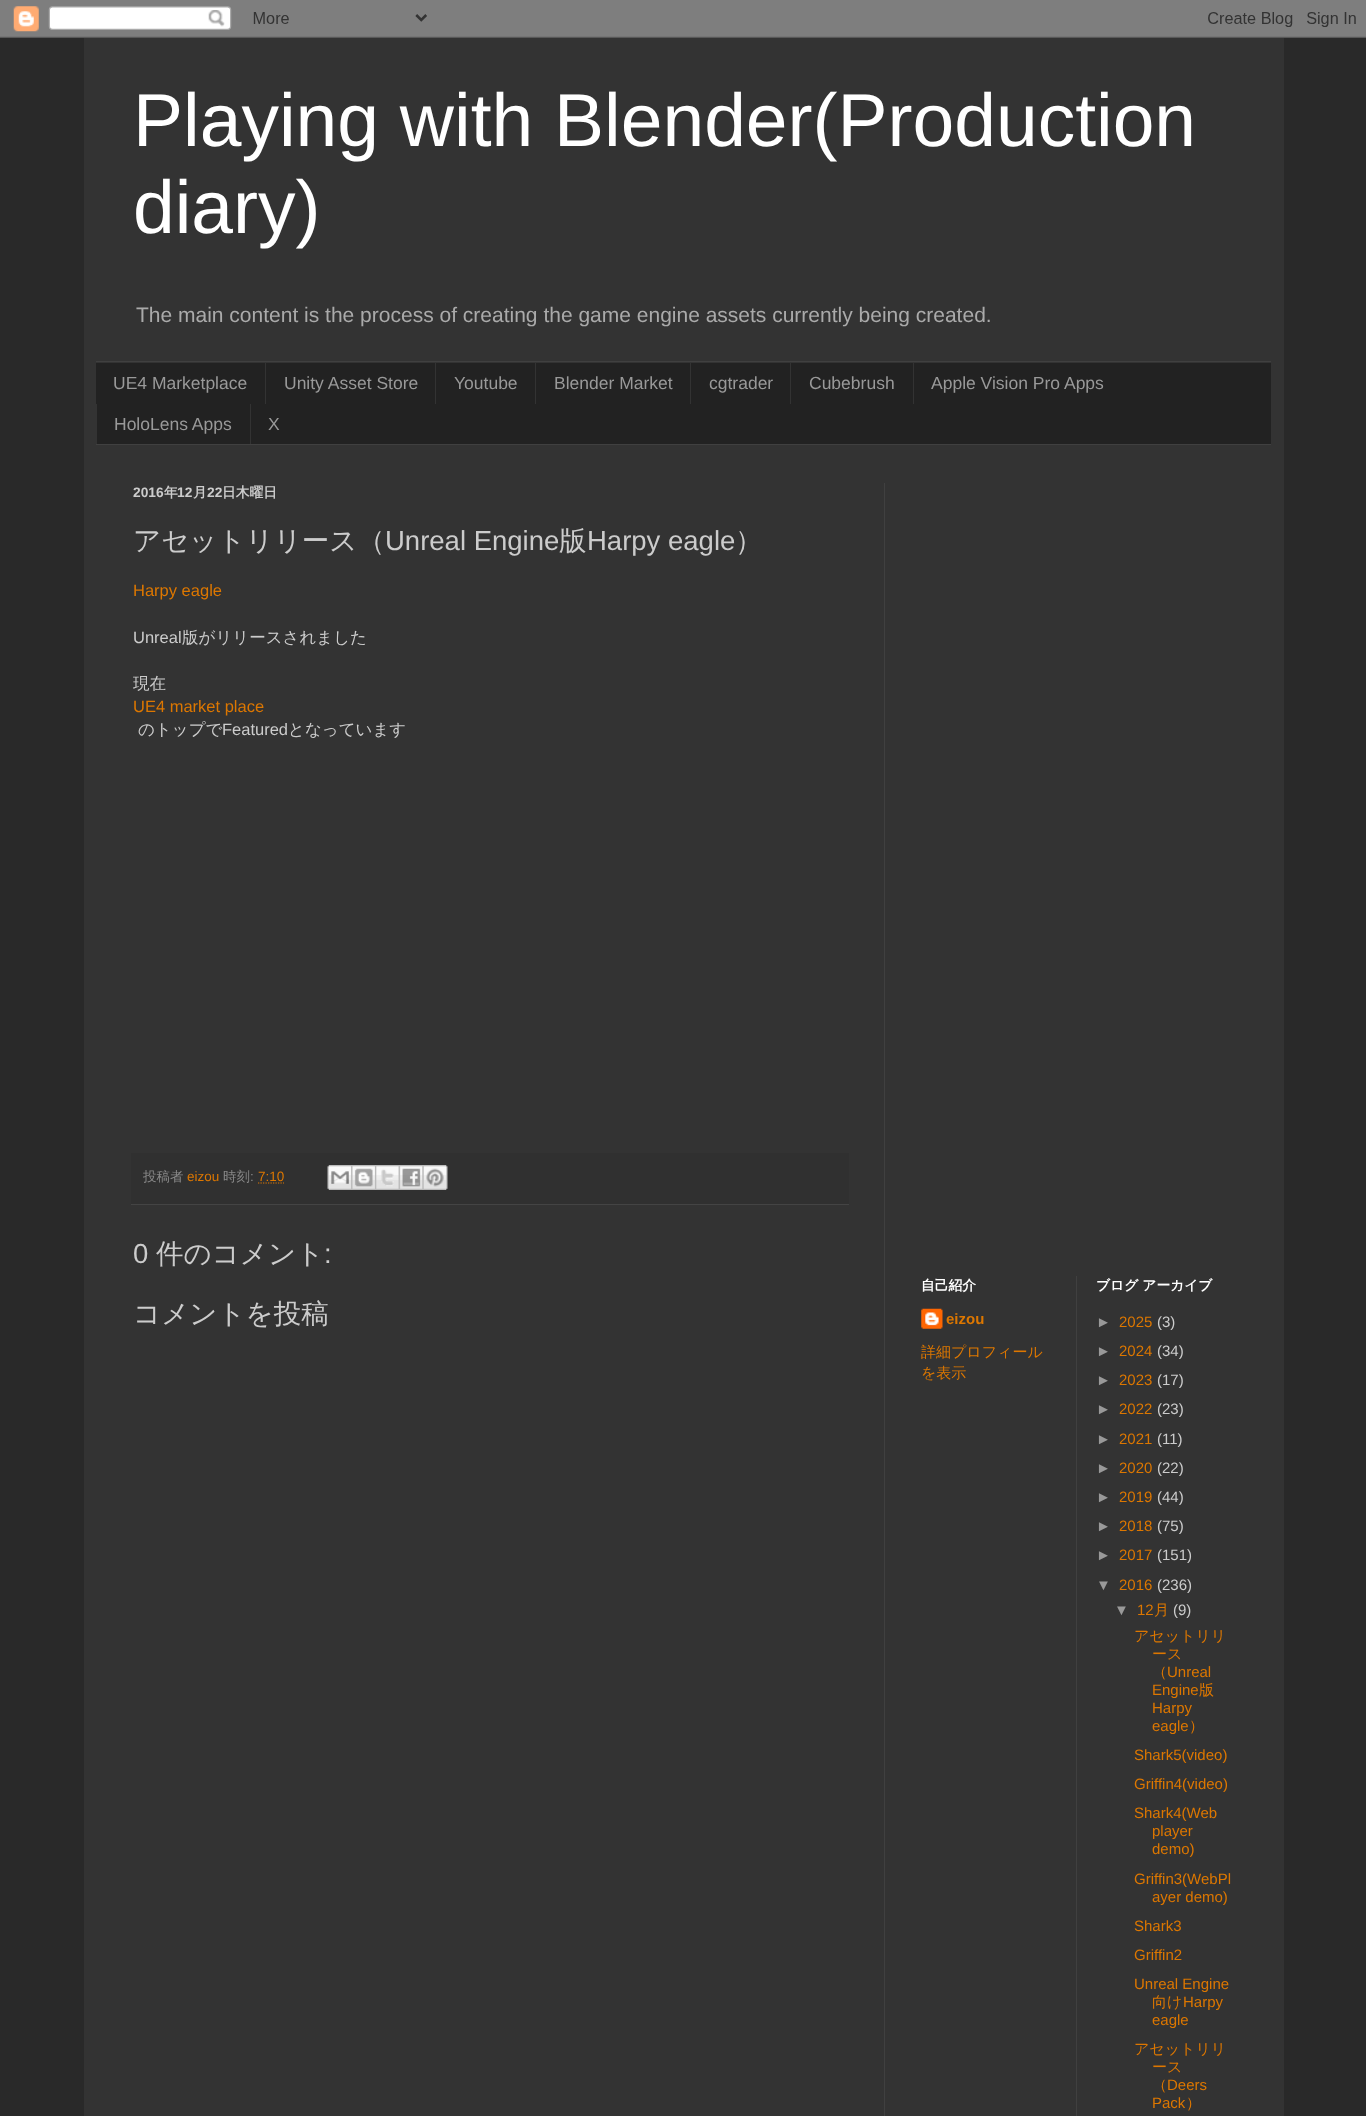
<!DOCTYPE html>
<meta charset="utf-8">
<style>body { margin: 0 } canvas { display: block }</style>
<canvas id="canvas" width="1366" height="2116"></canvas>
<img id="img1" src="images/1.png" hidden>
<img id="img2" src="images/2.png" hidden>
<img id="img3" src="images/3.png" hidden>
<img id="img4" src="images/4.png" hidden>
<img id="img5" src="images/5.png" hidden>
<img id="img6" src="images/6.png" hidden>
<img id="img7" src="images/7.png" hidden>
<script>
window.onload = function () {
    const canvas = document.getElementById('canvas');
    const context = canvas.getContext('2d');
    context.miterLimit = 4;
    context.fontKerning = 'normal';

    context.fillStyle = 'rgb(41, 41, 41)';
    context.fillRect(0, 0, 1366, 2116);
    context.drawImage(document.getElementById('img1'), 0, 0, 1366, 38);
    context.fillStyle = 'rgb(51, 51, 51)';
    context.fillRect(84, 38, 1200, 2078);
    context.fillStyle = 'rgb(34, 34, 34)';
    context.fillRect(96, 363, 1175, 81);
    context.fillStyle = 'rgb(64, 64, 64)';
    context.fillRect(96, 361, 1175, 1);
    context.fillRect(96, 444, 1175, 1);
    context.fillStyle = 'rgb(51, 51, 51)';
    context.fillRect(265, 363, 1, 41);
    context.fillRect(435, 363, 1, 41);
    context.fillRect(535, 363, 1, 41);
    context.fillRect(690, 363, 1, 41);
    context.fillRect(790, 363, 1, 41);
    context.fillRect(913, 363, 1, 41);
    context.fillRect(96, 404, 1, 40);
    context.fillRect(250, 404, 1, 40);
    context.fillStyle = 'rgb(64, 64, 64)';
    context.fillRect(884, 483, 1, 1633);
    context.fillStyle = 'rgb(48, 48, 48)';
    context.fillRect(131, 1153, 718, 51);
    context.fillStyle = 'rgb(68, 68, 68)';
    context.fillRect(131, 1204, 718, 1);
    context.beginPath();
    context.moveTo(258, 1183);
    context.lineTo(284, 1183);
    context.strokeStyle = 'rgb(221, 119, 0)';
    context.lineWidth = 1.2;
    context.setLineDash([1.25, 1.25]);
    context.stroke();
    context.drawImage(document.getElementById('img2'), 327, 1165, 25, 25);
    context.drawImage(document.getElementById('img3'), 351, 1165, 24, 25);
    context.drawImage(document.getElementById('img4'), 375, 1165, 24, 25);
    context.drawImage(document.getElementById('img5'), 398, 1165, 25, 25);
    context.drawImage(document.getElementById('img6'), 422, 1165, 26, 25);
    context.drawImage(document.getElementById('img7'), 921, 1308, 22, 21);
    context.fillStyle = 'rgb(64, 64, 64)';
    context.fillRect(1076, 1276, 1, 840);
    context.font = '75px Liberation Sans';
    context.fillStyle = 'rgb(255, 255, 255)';
    context.fillText('Playing with Blender(Production', 133, 146);
    context.fillText('diary)', 133, 233);
    context.font = '21px Liberation Sans';
    context.fillStyle = 'rgb(170, 170, 170)';
    context.fillText('The main content is the process of creating the game engine assets currently being created.', 136, 322);
    context.font = '17.5px Liberation Sans';
    context.fillStyle = 'rgb(153, 153, 153)';
    context.fillText('UE4 Marketplace', 113, 389);
    context.fillText('Unity Asset Store', 284, 389);
    context.fillText('Youtube', 454, 389);
    context.fillText('Blender Market', 554, 389);
    context.fillText('cgtrader', 709, 389);
    context.fillText('Cubebrush', 809, 389);
    context.fillText('Apple Vision Pro Apps', 931, 389);
    context.fillText('HoloLens Apps', 114, 430);
    context.fillText('X', 268, 430);
    context.font = 'bold 13.75px Liberation Sans';
    context.fillStyle = 'rgb(204, 204, 204)';
    context.fillText('2016', 133, 497);
    context.font = 'bold 13.75px WenQuanYi Zen Hei';
    context.fillText('年', 164, 497);
    context.font = 'bold 13.75px Liberation Sans';
    context.fillText('12', 177, 497);
    context.font = 'bold 13.75px WenQuanYi Zen Hei';
    context.fillText('月', 193, 497);
    context.font = 'bold 13.75px Liberation Sans';
    context.fillText('22', 207, 497);
    context.font = 'bold 13.75px WenQuanYi Zen Hei';
    context.fillText('日木曜日', 222, 497);
    context.font = '500 27.5px WenQuanYi Zen Hei';
    context.fillText('アセットリリース（', 133, 550);
    context.font = '27.5px Liberation Sans';
    context.fillText('Unreal Engine', 385, 550);
    context.font = '500 27.5px WenQuanYi Zen Hei';
    context.fillText('版', 559, 550);
    context.font = '27.5px Liberation Sans';
    context.fillText('Harpy eagle', 587, 550);
    context.font = '500 27.5px WenQuanYi Zen Hei';
    context.fillText('）', 735, 550);
    context.font = '16.5px Liberation Sans';
    context.fillStyle = 'rgb(221, 119, 0)';
    context.fillText('Harpy eagle', 133, 596);
    context.fillStyle = 'rgb(204, 204, 204)';
    context.fillText('Unreal', 133, 643);
    context.font = '500 16.5px WenQuanYi Zen Hei';
    context.fillText('版がリリースされました', 182, 643);
    context.fillText('現在', 133, 689);
    context.font = '16.5px Liberation Sans';
    context.fillStyle = 'rgb(221, 119, 0)';
    context.fillText('UE4 market place', 133, 712);
    context.font = '500 16.5px WenQuanYi Zen Hei';
    context.fillStyle = 'rgb(204, 204, 204)';
    context.fillText('のトップで', 138, 735);
    context.font = '16.5px Liberation Sans';
    context.fillText('Featured', 222, 735);
    context.font = '500 16.5px WenQuanYi Zen Hei';
    context.fillText('となっています', 288, 735);
    context.font = '500 13.5px WenQuanYi Zen Hei';
    context.fillStyle = 'rgb(136, 136, 136)';
    context.fillText('投稿者', 143, 1181);
    context.font = '13.5px Liberation Sans';
    context.fillStyle = 'rgb(221, 119, 0)';
    context.fillText('eizou', 187, 1181);
    context.font = '500 13.5px WenQuanYi Zen Hei';
    context.fillStyle = 'rgb(136, 136, 136)';
    context.fillText('時刻', 223, 1181);
    context.font = '13.5px Liberation Sans';
    context.fillText(':', 250, 1181);
    context.fillStyle = 'rgb(221, 119, 0)';
    context.fillText('7:10', 258, 1181);
    context.font = '27.5px Liberation Sans';
    context.fillStyle = 'rgb(204, 204, 204)';
    context.fillText('0', 133, 1263);
    context.font = '500 27.5px WenQuanYi Zen Hei';
    context.fillText('件のコメント', 156, 1263);
    context.font = '27.5px Liberation Sans';
    context.fillText(':', 324, 1263);
    context.font = '500 27.5px WenQuanYi Zen Hei';
    context.fillText('コメントを投稿', 133, 1323);
    context.font = 'bold 13.75px WenQuanYi Zen Hei';
    context.fillStyle = 'rgb(255, 255, 255)';
    context.fillText('自己紹介', 921, 1290);
    context.font = 'bold 15px Liberation Sans';
    context.fillStyle = 'rgb(221, 119, 0)';
    context.fillText('eizou', 946, 1324);
    context.font = '500 15px WenQuanYi Zen Hei';
    context.fillText('詳細プロフィール', 921, 1357);
    context.fillText('を表示', 921, 1378);
    context.font = 'bold 13.75px WenQuanYi Zen Hei';
    context.fillStyle = 'rgb(255, 255, 255)';
    context.fillText('ブログ アーカイブ', 1096, 1290);
    context.font = '15px Liberation Sans';
    context.fillStyle = 'rgb(153, 153, 153)';
    context.fillText('►', 1096, 1327);
    context.fillStyle = 'rgb(221, 119, 0)';
    context.fillText('2025', 1119, 1327);
    context.fillStyle = 'rgb(204, 204, 204)';
    context.fillText('(3)', 1157, 1327);
    context.fillStyle = 'rgb(153, 153, 153)';
    context.fillText('►', 1096, 1356);
    context.fillStyle = 'rgb(221, 119, 0)';
    context.fillText('2024', 1119, 1356);
    context.fillStyle = 'rgb(204, 204, 204)';
    context.fillText('(34)', 1157, 1356);
    context.fillStyle = 'rgb(153, 153, 153)';
    context.fillText('►', 1096, 1385);
    context.fillStyle = 'rgb(221, 119, 0)';
    context.fillText('2023', 1119, 1385);
    context.fillStyle = 'rgb(204, 204, 204)';
    context.fillText('(17)', 1157, 1385);
    context.fillStyle = 'rgb(153, 153, 153)';
    context.fillText('►', 1096, 1414);
    context.fillStyle = 'rgb(221, 119, 0)';
    context.fillText('2022', 1119, 1414);
    context.fillStyle = 'rgb(204, 204, 204)';
    context.fillText('(23)', 1157, 1414);
    context.fillStyle = 'rgb(153, 153, 153)';
    context.fillText('►', 1096, 1444);
    context.fillStyle = 'rgb(221, 119, 0)';
    context.fillText('2021', 1119, 1444);
    context.fillStyle = 'rgb(204, 204, 204)';
    context.fillText('(11)', 1157, 1444);
    context.fillStyle = 'rgb(153, 153, 153)';
    context.fillText('►', 1096, 1473);
    context.fillStyle = 'rgb(221, 119, 0)';
    context.fillText('2020', 1119, 1473);
    context.fillStyle = 'rgb(204, 204, 204)';
    context.fillText('(22)', 1157, 1473);
    context.fillStyle = 'rgb(153, 153, 153)';
    context.fillText('►', 1096, 1502);
    context.fillStyle = 'rgb(221, 119, 0)';
    context.fillText('2019', 1119, 1502);
    context.fillStyle = 'rgb(204, 204, 204)';
    context.fillText('(44)', 1157, 1502);
    context.fillStyle = 'rgb(153, 153, 153)';
    context.fillText('►', 1096, 1531);
    context.fillStyle = 'rgb(221, 119, 0)';
    context.fillText('2018', 1119, 1531);
    context.fillStyle = 'rgb(204, 204, 204)';
    context.fillText('(75)', 1157, 1531);
    context.fillStyle = 'rgb(153, 153, 153)';
    context.fillText('►', 1096, 1560);
    context.fillStyle = 'rgb(221, 119, 0)';
    context.fillText('2017', 1119, 1560);
    context.fillStyle = 'rgb(204, 204, 204)';
    context.fillText('(151)', 1157, 1560);
    context.fillStyle = 'rgb(153, 153, 153)';
    context.fillText('▼', 1096, 1590);
    context.fillStyle = 'rgb(221, 119, 0)';
    context.fillText('2016', 1119, 1590);
    context.fillStyle = 'rgb(204, 204, 204)';
    context.fillText('(236)', 1157, 1590);
    context.fillStyle = 'rgb(153, 153, 153)';
    context.fillText('▼', 1114, 1615);
    context.fillStyle = 'rgb(221, 119, 0)';
    context.fillText('12', 1137, 1615);
    context.font = '500 15px WenQuanYi Zen Hei';
    context.fillText('月', 1154, 1615);
    context.font = '15px Liberation Sans';
    context.fillStyle = 'rgb(204, 204, 204)';
    context.fillText('(9)', 1173, 1615);
    context.font = '500 15px WenQuanYi Zen Hei';
    context.fillStyle = 'rgb(221, 119, 0)';
    context.fillText('アセットリリ', 1134, 1641);
    context.fillText('ース', 1152, 1659);
    context.fillText('（', 1152, 1677);
    context.font = '15px Liberation Sans';
    context.fillText('Unreal', 1167, 1677);
    context.fillText('Engine', 1152, 1695);
    context.font = '500 15px WenQuanYi Zen Hei';
    context.fillText('版', 1199, 1695);
    context.font = '15px Liberation Sans';
    context.fillText('Harpy', 1152, 1713);
    context.fillText('eagle', 1152, 1731);
    context.font = '500 15px WenQuanYi Zen Hei';
    context.fillText('）', 1189, 1731);
    context.font = '15px Liberation Sans';
    context.fillText('Shark5(video)', 1134, 1760);
    context.fillText('Griffin4(video)', 1134, 1789);
    context.fillText('Shark4(Web', 1134, 1818);
    context.fillText('player', 1152, 1836);
    context.fillText('demo)', 1152, 1854);
    context.fillText('Griffin3(WebPl', 1134, 1884);
    context.fillText('ayer demo)', 1152, 1902);
    context.fillText('Shark3', 1134, 1931);
    context.fillText('Griffin2', 1134, 1960);
    context.fillText('Unreal Engine', 1134, 1989);
    context.font = '500 15px WenQuanYi Zen Hei';
    context.fillText('向け', 1152, 2007);
    context.font = '15px Liberation Sans';
    context.fillText('Harpy', 1183, 2007);
    context.fillText('eagle', 1152, 2025);
    context.font = '500 15px WenQuanYi Zen Hei';
    context.fillText('アセットリリ', 1134, 2054);
    context.fillText('ース', 1152, 2072);
    context.fillText('（', 1152, 2090);
    context.font = '15px Liberation Sans';
    context.fillText('Deers', 1167, 2090);
    context.fillText('Pack', 1152, 2108);
    context.font = '500 15px WenQuanYi Zen Hei';
    context.fillText('）', 1186, 2108);
};
</script>
